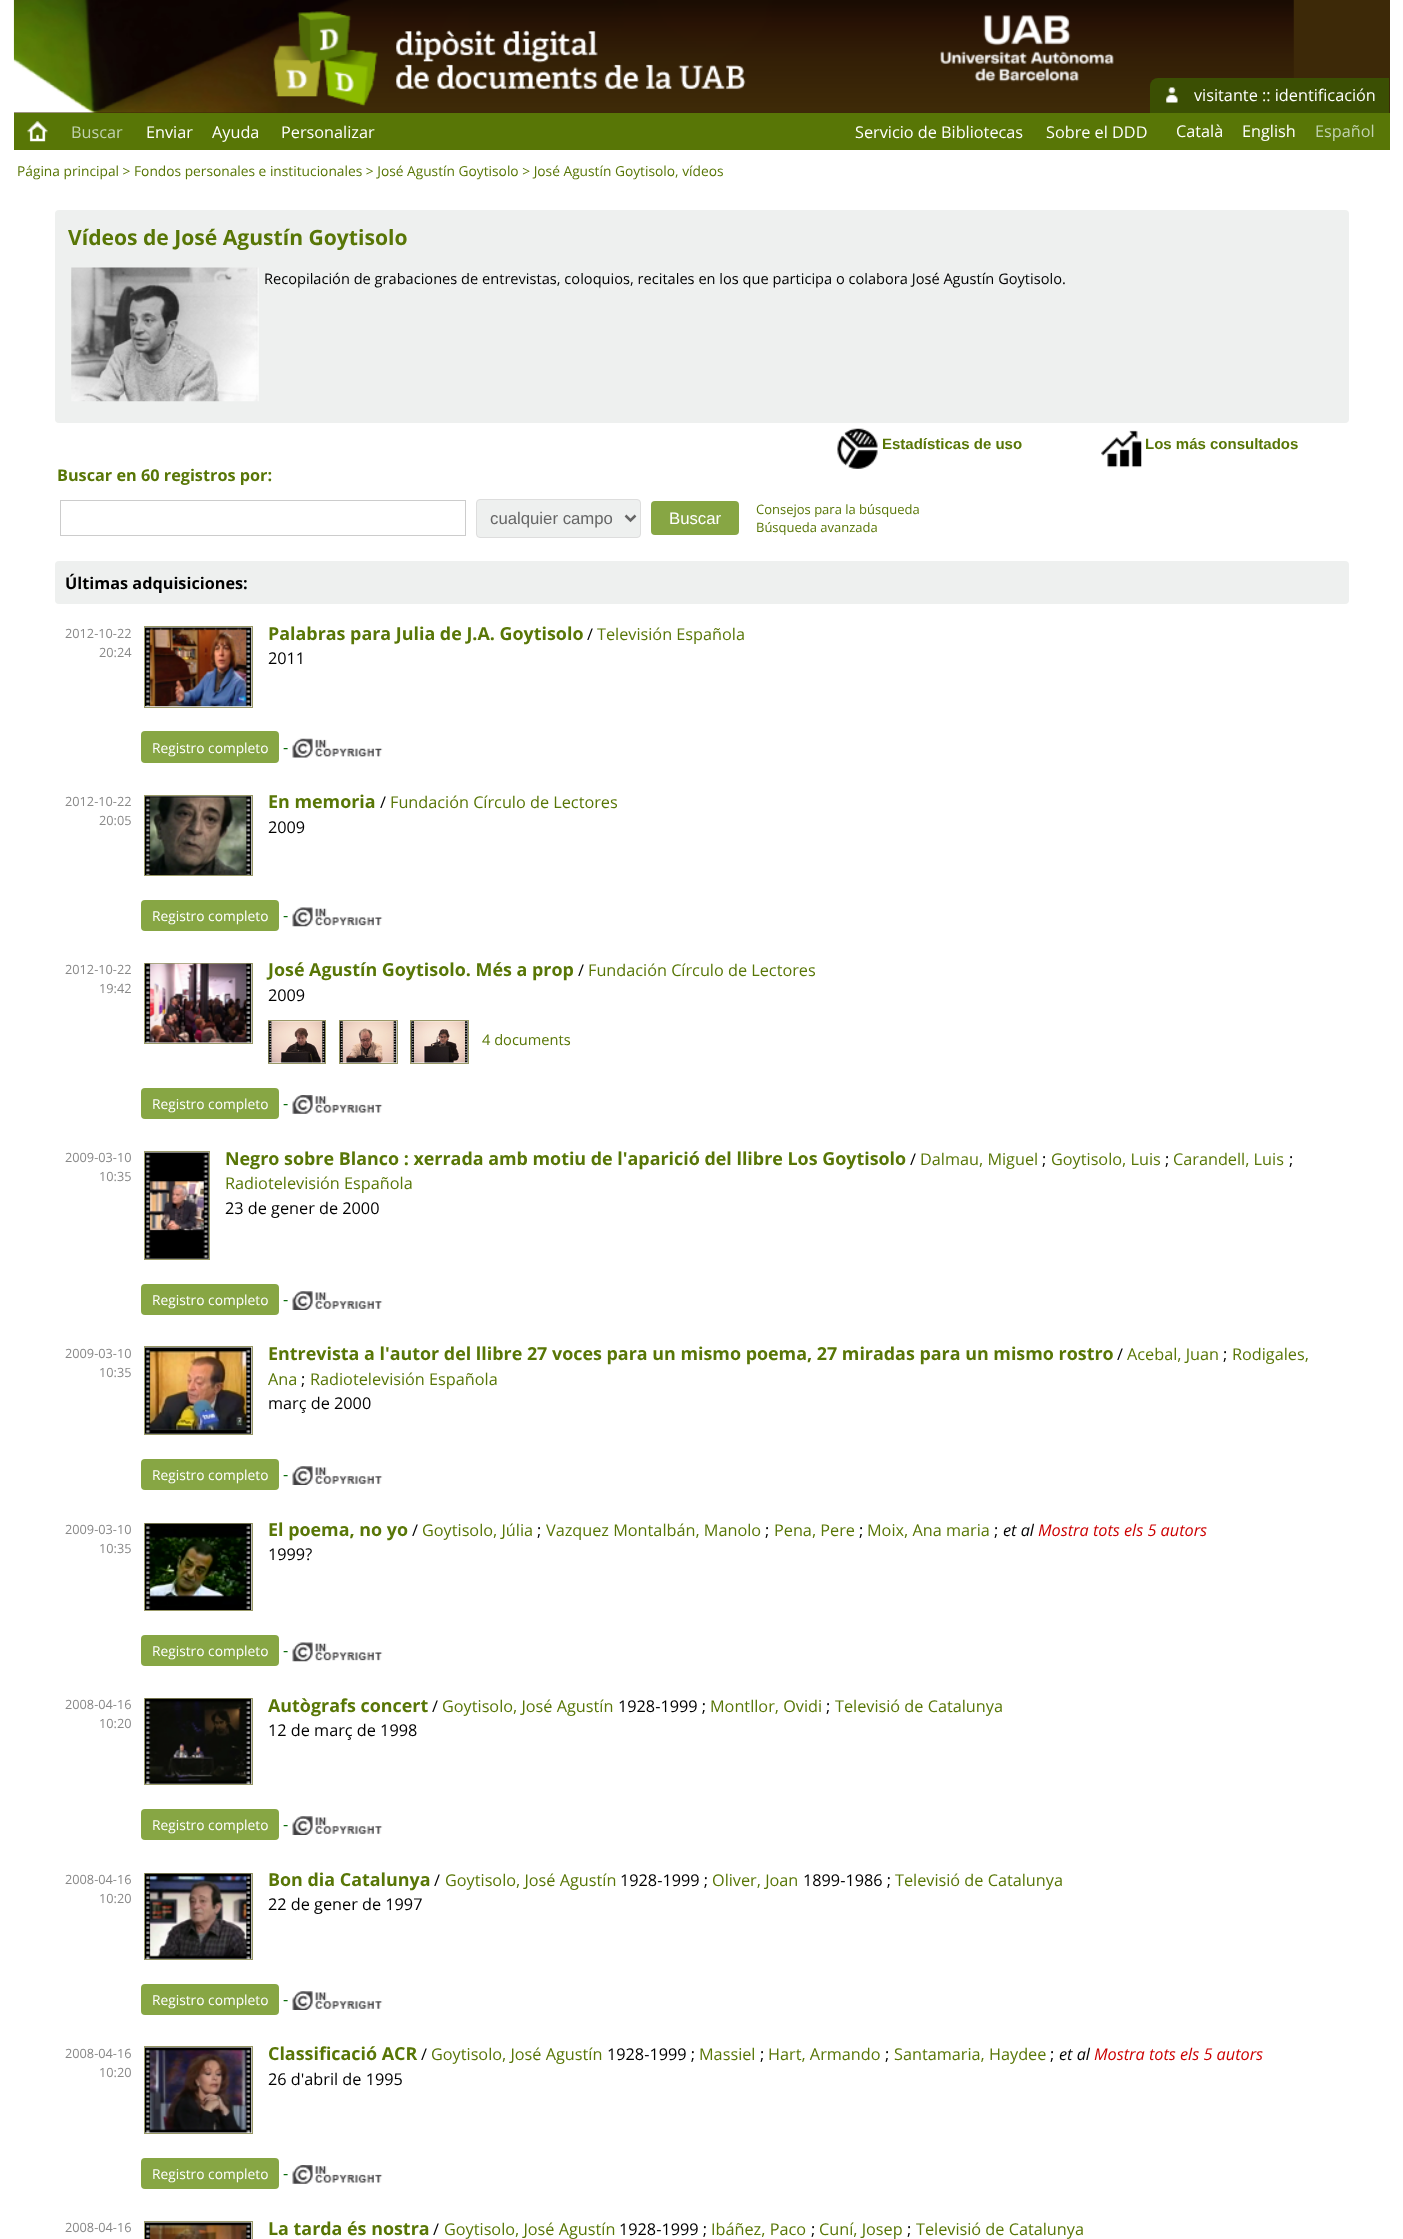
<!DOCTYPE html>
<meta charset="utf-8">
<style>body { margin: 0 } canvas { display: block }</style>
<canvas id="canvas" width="1403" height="2239"></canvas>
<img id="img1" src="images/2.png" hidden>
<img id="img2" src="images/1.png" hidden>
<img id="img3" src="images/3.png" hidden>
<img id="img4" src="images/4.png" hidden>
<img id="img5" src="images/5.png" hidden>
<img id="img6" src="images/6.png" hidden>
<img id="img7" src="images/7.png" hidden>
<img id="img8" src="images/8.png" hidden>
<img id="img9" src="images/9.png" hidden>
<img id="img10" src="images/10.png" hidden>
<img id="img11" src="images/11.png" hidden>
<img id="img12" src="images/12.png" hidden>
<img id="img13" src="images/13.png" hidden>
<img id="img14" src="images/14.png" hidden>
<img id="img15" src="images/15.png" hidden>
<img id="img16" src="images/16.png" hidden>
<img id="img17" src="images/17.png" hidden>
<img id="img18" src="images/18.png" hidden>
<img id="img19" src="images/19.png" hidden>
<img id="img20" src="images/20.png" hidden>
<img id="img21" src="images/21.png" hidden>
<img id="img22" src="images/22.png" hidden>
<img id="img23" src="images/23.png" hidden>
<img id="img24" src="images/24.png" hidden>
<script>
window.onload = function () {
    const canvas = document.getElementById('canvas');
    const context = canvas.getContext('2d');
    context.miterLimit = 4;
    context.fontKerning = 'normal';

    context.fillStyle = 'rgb(255, 255, 255)';
    context.fillRect(0, 0, 1403, 2239);
    context.fillStyle = 'rgb(61, 41, 8)';
    context.fillRect(14, 0, 1376, 113);
    context.drawImage(document.getElementById('img1'), 13, 0, 1281, 113);
    context.drawImage(document.getElementById('img2'), 940, 15, 174, 67);
    context.fillStyle = 'rgb(59, 79, 3)';
    context.beginPath();
    context.roundRect(1150, 78, 239, 35, [8, 0, 0, 0]);
    context.fill();
    context.drawImage(document.getElementById('img3'), 1166, 87, 12, 16);
    context.fillStyle = 'rgb(88, 118, 6)';
    context.fillRect(14, 113, 1376, 37);
    context.drawImage(document.getElementById('img4'), 27, 121, 21, 21);
    context.fillStyle = 'rgb(238, 240, 239)';
    context.beginPath();
    context.roundRect(55, 210, 1294, 213, 4);
    context.fill();
    context.drawImage(document.getElementById('img5'), 71, 267, 188, 135);
    context.drawImage(document.getElementById('img6'), 837, 428, 41, 41);
    context.drawImage(document.getElementById('img7'), 1101, 430, 41, 38);
    context.strokeStyle = 'rgb(204, 204, 204)';
    context.strokeRect(60.5, 500.5, 405, 35);
    context.beginPath();
    context.roundRect(476.5, 499.5, 164, 38, 3.5);
    context.fill();
    context.strokeStyle = 'rgb(221, 221, 221)';
    context.stroke();
    context.beginPath();
    context.moveTo(625.5, 515.5);
    context.lineTo(630.5, 520.5);
    context.lineTo(635.5, 515.5);
    context.strokeStyle = 'rgb(102, 102, 102)';
    context.lineWidth = 2.5;
    context.stroke();
    context.fillStyle = 'rgb(135, 166, 68)';
    context.beginPath();
    context.roundRect(651, 501, 88, 34, 4);
    context.fill();
    context.fillStyle = 'rgb(238, 240, 239)';
    context.beginPath();
    context.roundRect(55, 561, 1294, 43, 4);
    context.fill();
    context.strokeStyle = 'rgb(153, 153, 102)';
    context.lineWidth = 1;
    context.strokeRect(144.5, 626.5, 108, 81);
    context.drawImage(document.getElementById('img8'), 145, 627, 107, 80);
    context.fillStyle = 'rgb(135, 166, 68)';
    context.beginPath();
    context.roundRect(141, 731, 138, 32, 4);
    context.fill();
    context.drawImage(document.getElementById('img9'), 292, 738, 91, 20);
    context.strokeRect(144.5, 795.5, 108, 80);
    context.drawImage(document.getElementById('img10'), 145, 796, 107, 79);
    context.beginPath();
    context.roundRect(141, 900, 138, 31, 4);
    context.fill();
    context.drawImage(document.getElementById('img11'), 292, 907, 91, 20);
    context.strokeRect(144.5, 963.5, 108, 80);
    context.drawImage(document.getElementById('img12'), 145, 963, 107, 80);
    context.strokeRect(268.5, 1020.5, 57, 43);
    context.drawImage(document.getElementById('img13'), 268, 1021, 57, 42);
    context.strokeRect(339.5, 1020.5, 58, 43);
    context.drawImage(document.getElementById('img14'), 340, 1021, 57, 42);
    context.strokeRect(410.5, 1020.5, 58, 43);
    context.drawImage(document.getElementById('img15'), 411, 1021, 57, 42);
    context.beginPath();
    context.roundRect(141, 1088, 138, 31, 4);
    context.fill();
    context.drawImage(document.getElementById('img16'), 292, 1095, 91, 19);
    context.strokeRect(144.5, 1151.5, 65, 108);
    context.drawImage(document.getElementById('img17'), 145, 1152, 64, 107);
    context.beginPath();
    context.roundRect(141, 1284, 138, 31, 4);
    context.fill();
    context.drawImage(document.getElementById('img18'), 292, 1291, 91, 19);
    context.strokeRect(144.5, 1346.5, 108, 88);
    context.drawImage(document.getElementById('img19'), 145, 1347, 107, 87);
    context.beginPath();
    context.roundRect(141, 1459, 138, 31, 4);
    context.fill();
    context.drawImage(document.getElementById('img18'), 292, 1466, 91, 19);
    context.strokeRect(144.5, 1523.5, 108, 87);
    context.drawImage(document.getElementById('img20'), 145, 1523, 107, 87);
    context.beginPath();
    context.roundRect(141, 1635, 138, 31, 4);
    context.fill();
    context.drawImage(document.getElementById('img11'), 292, 1642, 91, 20);
    context.strokeRect(144.5, 1698.5, 108, 86);
    context.drawImage(document.getElementById('img21'), 145, 1698, 107, 86);
    context.beginPath();
    context.roundRect(141, 1809, 138, 31, 4);
    context.fill();
    context.drawImage(document.getElementById('img18'), 292, 1816, 91, 19);
    context.strokeRect(144.5, 1873.5, 108, 86);
    context.drawImage(document.getElementById('img22'), 145, 1873, 107, 86);
    context.beginPath();
    context.roundRect(141, 1984, 138, 31, 4);
    context.fill();
    context.drawImage(document.getElementById('img18'), 292, 1991, 91, 19);
    context.strokeRect(144.5, 2046.5, 108, 87);
    context.drawImage(document.getElementById('img23'), 145, 2047, 107, 86);
    context.beginPath();
    context.roundRect(141, 2158, 138, 31, 4);
    context.fill();
    context.drawImage(document.getElementById('img16'), 292, 2165, 91, 19);
    context.strokeRect(144.5, 2221.5, 108, 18);
    context.drawImage(document.getElementById('img24'), 145, 2222, 107, 17);
    context.font = '16.25px Open Sans';
    context.fillStyle = 'rgb(255, 255, 255)';
    context.fillText('visitante :: identificación', 1194, 101);
    context.fillStyle = 'rgb(193, 210, 176)';
    context.fillText('Buscar', 71, 138);
    context.fillStyle = 'rgb(255, 255, 255)';
    context.fillText('Enviar', 146, 138);
    context.fillText('Ayuda', 212, 138);
    context.fillText('Personalizar', 281, 138);
    context.fillText('Servicio de Bibliotecas', 855, 138);
    context.fillText('Sobre el DDD', 1046, 138);
    context.fillText('Català', 1176, 137);
    context.fillText('English', 1242, 137);
    context.fillStyle = 'rgb(193, 210, 176)';
    context.fillText('Español', 1315, 137);
    context.font = '13.75px Open Sans';
    context.fillStyle = 'rgb(88, 118, 6)';
    context.fillText('Página principal > Fondos personales e institucionales > José Agustín Goytisolo > José Agustín Goytisolo, vídeos', 17, 176);
    context.font = 'bold 21.1px Open Sans';
    context.fillText('Vídeos de José Agustín Goytisolo', 68, 245);
    context.font = '14.62px Open Sans';
    context.fillStyle = 'rgb(0, 0, 0)';
    context.fillText('Recopilación de grabaciones de entrevistas, coloquios, recitales en los que participa o colabora José Agustín Goytisolo.', 264, 284);
    context.font = 'bold 15px Liberation Sans';
    context.fillStyle = 'rgb(88, 118, 6)';
    context.fillText('Estadísticas de uso', 882, 449);
    context.fillText('Los más consultados', 1145, 449);
    context.font = 'bold 16.25px Open Sans';
    context.fillText('Buscar en 60 registros por:', 57, 481);
    context.font = '16.75px Liberation Sans';
    context.fillStyle = 'rgb(102, 102, 102)';
    context.fillText('cualquier campo', 490, 524);
    context.fillStyle = 'rgb(255, 255, 255)';
    context.fillText('Buscar', 669, 524);
    context.font = '13px Open Sans';
    context.fillStyle = 'rgb(88, 118, 6)';
    context.fillText('Consejos para la búsqueda', 756, 514);
    context.fillText('Búsqueda avanzada', 756, 532);
    context.font = 'bold 16.25px Open Sans';
    context.fillStyle = 'rgb(0, 0, 0)';
    context.fillText('Últimas adquisiciones:', 65, 589);
    context.font = '12.75px Open Sans';
    context.fillStyle = 'rgb(136, 136, 136)';
    context.fillText('2012-10-22', 65, 638);
    context.fillText('20:24', 99, 657);
    context.font = 'bold 17.9px Open Sans';
    context.fillStyle = 'rgb(88, 118, 6)';
    context.fillText('Palabras para Julia de J.A. Goytisolo', 268, 640);
    context.font = '16.25px Open Sans';
    context.fillStyle = 'rgb(0, 0, 0)';
    context.fillText('/', 587, 640);
    context.fillStyle = 'rgb(88, 118, 6)';
    context.fillText('Televisión Española', 597, 640);
    context.fillStyle = 'rgb(0, 0, 0)';
    context.fillText('2011', 268, 664);
    context.font = '13.75px Open Sans';
    context.fillStyle = 'rgb(255, 255, 255)';
    context.fillText('Registro completo', 152, 753);
    context.font = '16.25px Open Sans';
    context.fillStyle = 'rgb(0, 102, 0)';
    context.fillText('-', 283, 753);
    context.font = '12.75px Open Sans';
    context.fillStyle = 'rgb(136, 136, 136)';
    context.fillText('2012-10-22', 65, 806);
    context.fillText('20:05', 99, 825);
    context.font = 'bold 17.9px Open Sans';
    context.fillStyle = 'rgb(88, 118, 6)';
    context.fillText('En memoria', 268, 808);
    context.font = '16.25px Open Sans';
    context.fillStyle = 'rgb(0, 0, 0)';
    context.fillText('/', 380, 808);
    context.fillStyle = 'rgb(88, 118, 6)';
    context.fillText('Fundación Círculo de Lectores', 390, 808);
    context.fillStyle = 'rgb(0, 0, 0)';
    context.fillText('2009', 268, 833);
    context.font = '13.75px Open Sans';
    context.fillStyle = 'rgb(255, 255, 255)';
    context.fillText('Registro completo', 152, 921);
    context.font = '16.25px Open Sans';
    context.fillStyle = 'rgb(0, 102, 0)';
    context.fillText('-', 283, 921);
    context.font = '12.75px Open Sans';
    context.fillStyle = 'rgb(136, 136, 136)';
    context.fillText('2012-10-22', 65, 974);
    context.fillText('19:42', 99, 993);
    context.font = 'bold 17.9px Open Sans';
    context.fillStyle = 'rgb(88, 118, 6)';
    context.fillText('José Agustín Goytisolo. Més a prop', 268, 976);
    context.font = '16.25px Open Sans';
    context.fillStyle = 'rgb(0, 0, 0)';
    context.fillText('/', 578, 976);
    context.fillStyle = 'rgb(88, 118, 6)';
    context.fillText('Fundación Círculo de Lectores', 588, 976);
    context.fillStyle = 'rgb(0, 0, 0)';
    context.fillText('2009', 268, 1001);
    context.font = '14.62px Open Sans';
    context.fillStyle = 'rgb(88, 118, 6)';
    context.fillText('4 documents', 482, 1045);
    context.font = '13.75px Open Sans';
    context.fillStyle = 'rgb(255, 255, 255)';
    context.fillText('Registro completo', 152, 1109);
    context.font = '16.25px Open Sans';
    context.fillStyle = 'rgb(0, 102, 0)';
    context.fillText('-', 283, 1109);
    context.font = '12.75px Open Sans';
    context.fillStyle = 'rgb(136, 136, 136)';
    context.fillText('2009-03-10', 65, 1162);
    context.fillText('10:35', 99, 1181);
    context.font = 'bold 17.9px Open Sans';
    context.fillStyle = 'rgb(88, 118, 6)';
    context.fillText('Negro sobre Blanco : xerrada amb motiu de l\'aparició del llibre Los Goytisolo', 225, 1165);
    context.font = '16.25px Open Sans';
    context.fillStyle = 'rgb(0, 0, 0)';
    context.fillText('/', 910, 1165);
    context.fillStyle = 'rgb(88, 118, 6)';
    context.fillText('Dalmau, Miguel', 920, 1165);
    context.fillStyle = 'rgb(0, 0, 0)';
    context.fillText(';', 1042, 1165);
    context.fillStyle = 'rgb(88, 118, 6)';
    context.fillText('Goytisolo, Luis', 1051, 1165);
    context.fillStyle = 'rgb(0, 0, 0)';
    context.fillText(';', 1165, 1165);
    context.fillStyle = 'rgb(88, 118, 6)';
    context.fillText('Carandell, Luis', 1173, 1165);
    context.fillStyle = 'rgb(0, 0, 0)';
    context.fillText(';', 1289, 1165);
    context.fillStyle = 'rgb(88, 118, 6)';
    context.fillText('Radiotelevisión Española', 225, 1189);
    context.fillStyle = 'rgb(0, 0, 0)';
    context.fillText('23 de gener de 2000', 225, 1214);
    context.font = '13.75px Open Sans';
    context.fillStyle = 'rgb(255, 255, 255)';
    context.fillText('Registro completo', 152, 1305);
    context.font = '16.25px Open Sans';
    context.fillStyle = 'rgb(0, 102, 0)';
    context.fillText('-', 283, 1305);
    context.font = '12.75px Open Sans';
    context.fillStyle = 'rgb(136, 136, 136)';
    context.fillText('2009-03-10', 65, 1358);
    context.fillText('10:35', 99, 1377);
    context.font = 'bold 17.9px Open Sans';
    context.fillStyle = 'rgb(88, 118, 6)';
    context.fillText('Entrevista a l\'autor del llibre 27 voces para un mismo poema, 27 miradas para un mismo rostro', 268, 1360);
    context.font = '16.25px Open Sans';
    context.fillStyle = 'rgb(0, 0, 0)';
    context.fillText('/', 1117, 1360);
    context.fillStyle = 'rgb(88, 118, 6)';
    context.fillText('Acebal, Juan', 1127, 1360);
    context.fillStyle = 'rgb(0, 0, 0)';
    context.fillText(';', 1223, 1360);
    context.fillStyle = 'rgb(88, 118, 6)';
    context.fillText('Rodigales,', 1232, 1360);
    context.fillText('Ana', 268, 1385);
    context.fillStyle = 'rgb(0, 0, 0)';
    context.fillText(';', 301, 1385);
    context.fillStyle = 'rgb(88, 118, 6)';
    context.fillText('Radiotelevisión Española', 310, 1385);
    context.fillStyle = 'rgb(0, 0, 0)';
    context.fillText('març de 2000', 268, 1409);
    context.font = '13.75px Open Sans';
    context.fillStyle = 'rgb(255, 255, 255)';
    context.fillText('Registro completo', 152, 1480);
    context.font = '16.25px Open Sans';
    context.fillStyle = 'rgb(0, 102, 0)';
    context.fillText('-', 283, 1480);
    context.font = '12.75px Open Sans';
    context.fillStyle = 'rgb(136, 136, 136)';
    context.fillText('2009-03-10', 65, 1534);
    context.fillText('10:35', 99, 1553);
    context.font = 'bold 17.9px Open Sans';
    context.fillStyle = 'rgb(88, 118, 6)';
    context.fillText('El poema, no yo', 268, 1536);
    context.font = '16.25px Open Sans';
    context.fillStyle = 'rgb(0, 0, 0)';
    context.fillText('/', 412, 1536);
    context.fillStyle = 'rgb(88, 118, 6)';
    context.fillText('Goytisolo, Júlia', 422, 1536);
    context.fillStyle = 'rgb(0, 0, 0)';
    context.fillText(';', 537, 1536);
    context.fillStyle = 'rgb(88, 118, 6)';
    context.fillText('Vazquez Montalbán, Manolo', 546, 1536);
    context.fillStyle = 'rgb(0, 0, 0)';
    context.fillText(';', 765, 1536);
    context.fillStyle = 'rgb(88, 118, 6)';
    context.fillText('Pena, Pere', 774, 1536);
    context.fillStyle = 'rgb(0, 0, 0)';
    context.fillText(';', 859, 1536);
    context.fillStyle = 'rgb(88, 118, 6)';
    context.fillText('Moix, Ana maria', 867, 1536);
    context.fillStyle = 'rgb(0, 0, 0)';
    context.fillText(';', 994, 1536);
    context.font = 'italic 16.25px Open Sans';
    context.fillText('et al', 1003, 1536);
    context.fillStyle = 'rgb(204, 0, 0)';
    context.fillText('Mostra tots els 5 autors', 1038, 1536);
    context.font = '16.25px Open Sans';
    context.fillStyle = 'rgb(0, 0, 0)';
    context.fillText('1999?', 268, 1560);
    context.font = '13.75px Open Sans';
    context.fillStyle = 'rgb(255, 255, 255)';
    context.fillText('Registro completo', 152, 1656);
    context.font = '16.25px Open Sans';
    context.fillStyle = 'rgb(0, 102, 0)';
    context.fillText('-', 283, 1656);
    context.font = '12.75px Open Sans';
    context.fillStyle = 'rgb(136, 136, 136)';
    context.fillText('2008-04-16', 65, 1709);
    context.fillText('10:20', 99, 1728);
    context.font = 'bold 17.9px Open Sans';
    context.fillStyle = 'rgb(88, 118, 6)';
    context.fillText('Autògrafs concert', 268, 1712);
    context.font = '16.25px Open Sans';
    context.fillStyle = 'rgb(0, 0, 0)';
    context.fillText('/', 432, 1712);
    context.fillStyle = 'rgb(88, 118, 6)';
    context.fillText('Goytisolo, José Agustín', 442, 1712);
    context.fillStyle = 'rgb(0, 0, 0)';
    context.fillText('1928-1999 ;', 618, 1712);
    context.fillStyle = 'rgb(88, 118, 6)';
    context.fillText('Montllor, Ovidi', 710, 1712);
    context.fillStyle = 'rgb(0, 0, 0)';
    context.fillText(';', 826, 1712);
    context.fillStyle = 'rgb(88, 118, 6)';
    context.fillText('Televisió de Catalunya', 835, 1712);
    context.fillStyle = 'rgb(0, 0, 0)';
    context.fillText('12 de març de 1998', 268, 1736);
    context.font = '13.75px Open Sans';
    context.fillStyle = 'rgb(255, 255, 255)';
    context.fillText('Registro completo', 152, 1830);
    context.font = '16.25px Open Sans';
    context.fillStyle = 'rgb(0, 102, 0)';
    context.fillText('-', 283, 1830);
    context.font = '12.75px Open Sans';
    context.fillStyle = 'rgb(136, 136, 136)';
    context.fillText('2008-04-16', 65, 1884);
    context.fillText('10:20', 99, 1903);
    context.font = 'bold 17.9px Open Sans';
    context.fillStyle = 'rgb(88, 118, 6)';
    context.fillText('Bon dia Catalunya', 268, 1886);
    context.font = '16.25px Open Sans';
    context.fillStyle = 'rgb(0, 0, 0)';
    context.fillText('/', 434, 1886);
    context.fillStyle = 'rgb(88, 118, 6)';
    context.fillText('Goytisolo, José Agustín', 445, 1886);
    context.fillStyle = 'rgb(0, 0, 0)';
    context.fillText('1928-1999 ;', 620, 1886);
    context.fillStyle = 'rgb(88, 118, 6)';
    context.fillText('Oliver, Joan', 712, 1886);
    context.fillStyle = 'rgb(0, 0, 0)';
    context.fillText('1899-1986 ;', 803, 1886);
    context.fillStyle = 'rgb(88, 118, 6)';
    context.fillText('Televisió de Catalunya', 895, 1886);
    context.fillStyle = 'rgb(0, 0, 0)';
    context.fillText('22 de gener de 1997', 268, 1910);
    context.font = '13.75px Open Sans';
    context.fillStyle = 'rgb(255, 255, 255)';
    context.fillText('Registro completo', 152, 2005);
    context.font = '16.25px Open Sans';
    context.fillStyle = 'rgb(0, 102, 0)';
    context.fillText('-', 283, 2005);
    context.font = '12.75px Open Sans';
    context.fillStyle = 'rgb(136, 136, 136)';
    context.fillText('2008-04-16', 65, 2058);
    context.fillText('10:20', 99, 2077);
    context.font = 'bold 17.9px Open Sans';
    context.fillStyle = 'rgb(88, 118, 6)';
    context.fillText('Classificació ACR', 268, 2060);
    context.font = '16.25px Open Sans';
    context.fillStyle = 'rgb(0, 0, 0)';
    context.fillText('/', 421, 2060);
    context.fillStyle = 'rgb(88, 118, 6)';
    context.fillText('Goytisolo, José Agustín', 431, 2060);
    context.fillStyle = 'rgb(0, 0, 0)';
    context.fillText('1928-1999 ;', 607, 2060);
    context.fillStyle = 'rgb(88, 118, 6)';
    context.fillText('Massiel', 699, 2060);
    context.fillStyle = 'rgb(0, 0, 0)';
    context.fillText(';', 760, 2060);
    context.fillStyle = 'rgb(88, 118, 6)';
    context.fillText('Hart, Armando', 768, 2060);
    context.fillStyle = 'rgb(0, 0, 0)';
    context.fillText(';', 885, 2060);
    context.fillStyle = 'rgb(88, 118, 6)';
    context.fillText('Santamaria, Haydee', 894, 2060);
    context.fillStyle = 'rgb(0, 0, 0)';
    context.fillText(';', 1050, 2060);
    context.font = 'italic 16.25px Open Sans';
    context.fillText('et al', 1059, 2060);
    context.fillStyle = 'rgb(204, 0, 0)';
    context.fillText('Mostra tots els 5 autors', 1094, 2060);
    context.font = '16.25px Open Sans';
    context.fillStyle = 'rgb(0, 0, 0)';
    context.fillText('26 d\'abril de 1995', 268, 2085);
    context.font = '13.75px Open Sans';
    context.fillStyle = 'rgb(255, 255, 255)';
    context.fillText('Registro completo', 152, 2179);
    context.font = '16.25px Open Sans';
    context.fillStyle = 'rgb(0, 102, 0)';
    context.fillText('-', 283, 2179);
    context.font = '12.75px Open Sans';
    context.fillStyle = 'rgb(136, 136, 136)';
    context.fillText('2008-04-16', 65, 2232);
    context.font = 'bold 17.9px Open Sans';
    context.fillStyle = 'rgb(88, 118, 6)';
    context.fillText('La tarda és nostra', 268, 2235);
    context.font = '16.25px Open Sans';
    context.fillStyle = 'rgb(0, 0, 0)';
    context.fillText('/', 433, 2235);
    context.fillStyle = 'rgb(88, 118, 6)';
    context.fillText('Goytisolo, José Agustín', 444, 2235);
    context.fillStyle = 'rgb(0, 0, 0)';
    context.fillText('1928-1999 ;', 619, 2235);
    context.fillStyle = 'rgb(88, 118, 6)';
    context.fillText('Ibáñez, Paco', 711, 2235);
    context.fillStyle = 'rgb(0, 0, 0)';
    context.fillText(';', 811, 2235);
    context.fillStyle = 'rgb(88, 118, 6)';
    context.fillText('Cuní, Josep', 819, 2235);
    context.fillStyle = 'rgb(0, 0, 0)';
    context.fillText(';', 907, 2235);
    context.fillStyle = 'rgb(88, 118, 6)';
    context.fillText('Televisió de Catalunya', 916, 2235);
};
</script>
